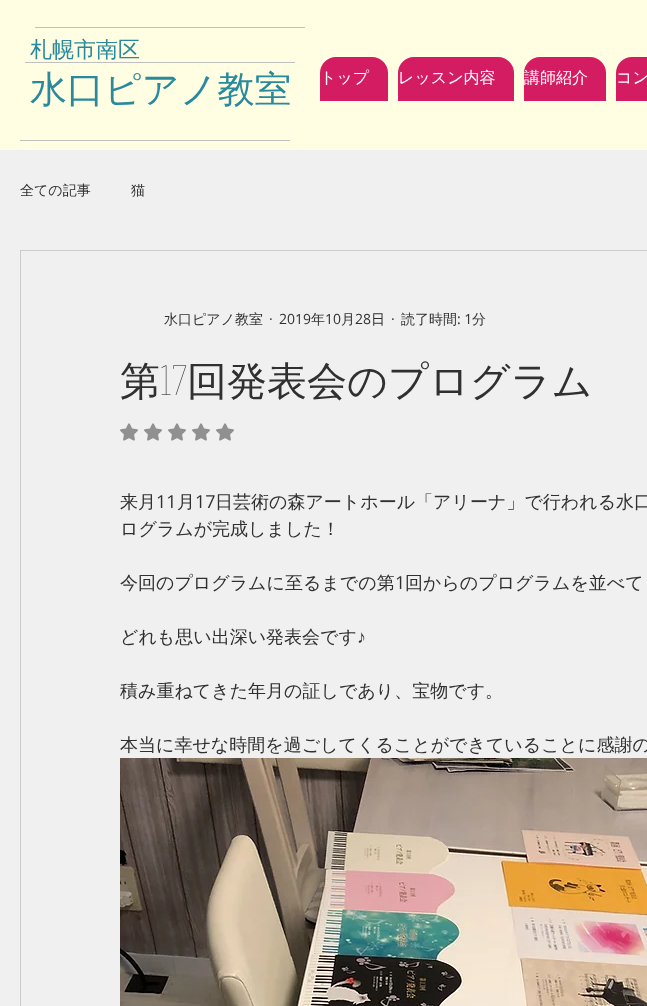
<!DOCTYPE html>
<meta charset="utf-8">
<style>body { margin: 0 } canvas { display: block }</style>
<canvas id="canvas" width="647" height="1006"></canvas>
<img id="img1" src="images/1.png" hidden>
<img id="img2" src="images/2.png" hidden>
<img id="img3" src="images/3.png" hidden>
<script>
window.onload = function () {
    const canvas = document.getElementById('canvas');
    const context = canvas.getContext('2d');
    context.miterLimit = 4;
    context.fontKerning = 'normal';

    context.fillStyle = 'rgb(255, 253, 226)';
    context.fillRect(0, 0, 647, 1006);
    context.fillStyle = 'rgb(192, 192, 192)';
    context.fillRect(35, 27, 270, 1);
    context.fillRect(25, 62, 270, 1);
    context.fillStyle = 'rgb(212, 28, 98)';
    context.beginPath();
    context.roundRect(320, 57, 68, 44, [16, 16, 0, 0]);
    context.fill();
    context.beginPath();
    context.roundRect(398, 57, 116, 44, [16, 16, 0, 0]);
    context.fill();
    context.beginPath();
    context.roundRect(524, 57, 82, 44, [16, 16, 0, 0]);
    context.fill();
    context.beginPath();
    context.moveTo(632, 57);
    context.lineTo(647, 57);
    context.bezierCurveTo(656, 57, 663, 64, 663, 73);
    context.lineTo(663, 101);
    context.lineTo(616, 101);
    context.lineTo(616, 73);
    context.bezierCurveTo(616, 64, 623, 57, 632, 57);
    context.closePath();
    context.fill();
    context.fillStyle = 'rgb(192, 192, 192)';
    context.fillRect(20, 140, 270, 1);
    context.fillStyle = 'rgb(240, 240, 240)';
    context.fillRect(0, 150, 647, 856);
    context.strokeStyle = 'rgb(204, 204, 204)';
    context.strokeRect(20.5, 250.5, 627, 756);
    context.drawImage(document.getElementById('img1'), 161, 365, 26, 30);
    context.drawImage(document.getElementById('img2'), 120, 423, 18, 18);
    context.drawImage(document.getElementById('img2'), 144, 423, 18, 18);
    context.drawImage(document.getElementById('img2'), 168, 423, 18, 18);
    context.drawImage(document.getElementById('img2'), 192, 423, 18, 18);
    context.drawImage(document.getElementById('img2'), 216, 423, 18, 18);
    context.drawImage(document.getElementById('img3'), 120, 758, 527, 248);
    context.font = '500 22px WenQuanYi Zen Hei';
    context.fillStyle = 'rgb(42, 138, 157)';
    context.fillText('札幌市南区', 30, 57);
    context.font = '500 37px WenQuanYi Zen Hei';
    context.fillText('水口ピアノ教室', 30, 102);
    context.font = '500 16px WenQuanYi Zen Hei';
    context.fillStyle = 'rgb(255, 255, 255)';
    context.fillText('トップ', 320, 83);
    context.fillText('レッスン内容', 398, 83);
    context.fillText('講師紹介', 524, 83);
    context.fillText('コン', 616, 83);
    context.font = '500 14px WenQuanYi Zen Hei';
    context.fillStyle = 'rgb(48, 48, 48)';
    context.fillText('全ての記事', 20, 195);
    context.fillText('猫', 131, 195);
    context.fillText('水口ピアノ教室', 164, 324);
    context.font = '14px Open Sans';
    context.fillText('·', 269, 324);
    context.fillText('2019', 279, 324);
    context.font = '500 14px WenQuanYi Zen Hei';
    context.fillText('年', 311, 324);
    context.font = '14px Open Sans';
    context.fillText('10', 325, 324);
    context.font = '500 14px WenQuanYi Zen Hei';
    context.fillText('月', 341, 324);
    context.font = '14px Open Sans';
    context.fillText('28', 355, 324);
    context.font = '500 14px WenQuanYi Zen Hei';
    context.fillText('日', 371, 324);
    context.font = '14px Open Sans';
    context.fillText('·', 391, 324);
    context.font = '500 14px WenQuanYi Zen Hei';
    context.fillText('読了時間', 401, 324);
    context.font = '14px Open Sans';
    context.fillText(': 1', 457, 324);
    context.font = '500 14px WenQuanYi Zen Hei';
    context.fillText('分', 472, 324);
    context.font = '500 40px WenQuanYi Zen Hei';
    context.fillText('第', 120, 395);
    context.fillText('回発表会のプログラム', 187, 395);
    context.font = '500 18px WenQuanYi Zen Hei';
    context.fillText('来月', 120, 508);
    context.font = '18px Open Sans';
    context.fillText('11', 156, 508);
    context.font = '500 18px WenQuanYi Zen Hei';
    context.fillText('月', 177, 508);
    context.font = '18px Open Sans';
    context.fillText('17', 195, 508);
    context.font = '500 18px WenQuanYi Zen Hei';
    context.fillText('日芸術の森アートホール「アリーナ」で行われる水口', 215, 508);
    context.fillText('ログラムが完成しました！', 120, 535);
    context.fillText('今回のプログラムに至るまでの第', 120, 589);
    context.font = '18px Open Sans';
    context.fillText('1', 395, 589);
    context.font = '500 18px WenQuanYi Zen Hei';
    context.fillText('回からのプログラムを並べて', 405, 589);
    context.fillText('どれも思い出深い発表会です', 120, 643);
    context.font = '18px Liberation Sans';
    context.fillText('♪', 357, 643);
    context.font = '500 18px WenQuanYi Zen Hei';
    context.fillText('積み重ねてきた年月の証しであり、宝物です。', 120, 697);
    context.fillText('本当に幸せな時間を過ごしてくることができていることに感謝の', 120, 751);
};
</script>
